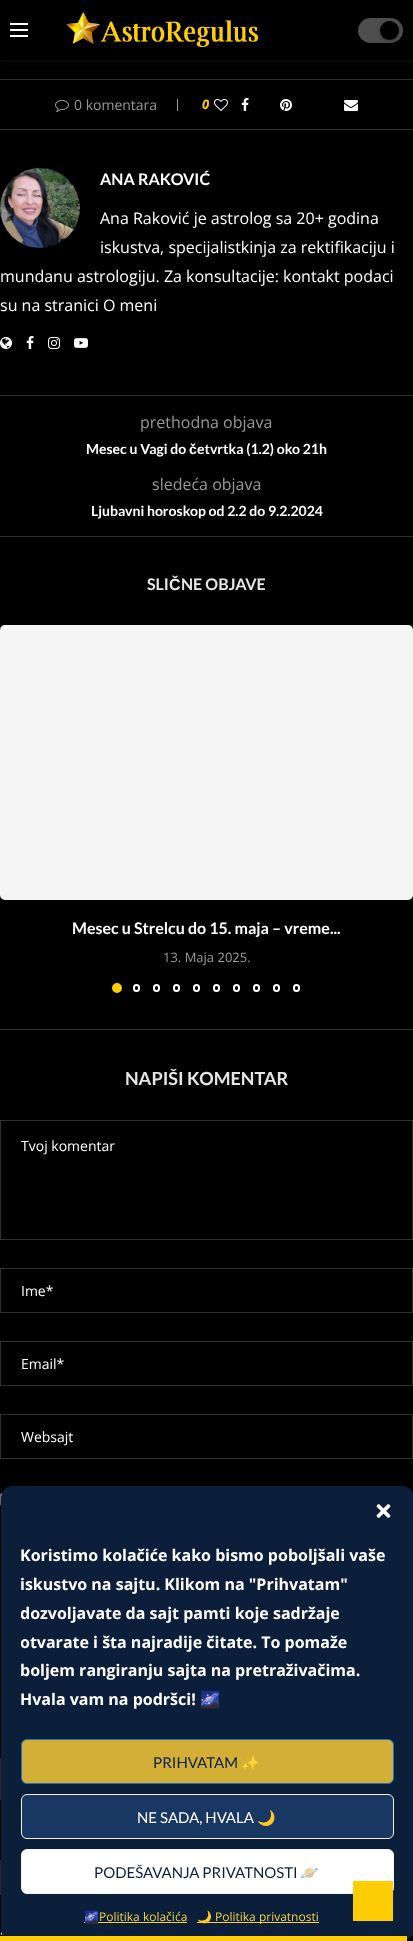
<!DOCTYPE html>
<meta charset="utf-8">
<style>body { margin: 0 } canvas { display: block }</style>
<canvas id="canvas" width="413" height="1941"></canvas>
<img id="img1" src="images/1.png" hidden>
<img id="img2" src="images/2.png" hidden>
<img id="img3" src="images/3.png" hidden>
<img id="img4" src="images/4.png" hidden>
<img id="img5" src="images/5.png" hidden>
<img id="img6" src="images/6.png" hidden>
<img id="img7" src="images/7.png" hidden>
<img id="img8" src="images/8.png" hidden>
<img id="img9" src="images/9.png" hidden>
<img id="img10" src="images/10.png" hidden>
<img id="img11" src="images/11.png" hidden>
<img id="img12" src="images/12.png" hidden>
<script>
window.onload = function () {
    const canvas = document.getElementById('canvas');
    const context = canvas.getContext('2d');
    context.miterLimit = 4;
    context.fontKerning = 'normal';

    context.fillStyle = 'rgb(0, 0, 0)';
    context.fillRect(0, 0, 413, 1941);
    context.fillStyle = 'rgba(255, 255, 255, 0.08)';
    context.filter = 'blur(2.5px)';
    context.beginPath();
    context.rect(0, 1, 413, 60);
    context.fill();
    context.filter = 'none';
    context.fillStyle = 'rgb(0, 0, 0)';
    context.fillRect(0, 0, 413, 60);
    context.fillStyle = 'rgb(255, 255, 255)';
    context.fillRect(10, 23, 18, 2);
    context.fillRect(10, 29, 18, 2);
    context.fillRect(10, 35, 18, 2);
    context.drawImage(document.getElementById('img1'), 66, 12, 192, 36);
    context.fillStyle = 'rgb(77, 77, 77)';
    context.beginPath();
    context.roundRect(358, 18, 45, 25, 12.5);
    context.fill();
    context.fillStyle = 'rgba(0, 0, 0, 0.3)';
    context.filter = 'blur(1.5px)';
    context.beginPath();
    context.roundRect(380, 22, 19, 19, 9.5);
    context.fill();
    context.filter = 'none';
    context.fillStyle = 'rgb(0, 0, 0)';
    context.beginPath();
    context.arc(389.5, 30.5, 9.5, 0, 2 * Math.PI);
    context.fill();
    context.fillStyle = 'rgb(49, 49, 49)';
    context.fillRect(0, 79, 413, 1);
    context.drawImage(document.getElementById('img2'), 55, 100, 14, 12);
    context.fillStyle = 'rgb(153, 153, 153)';
    context.fillRect(177, 99, 1, 12);
    context.drawImage(document.getElementById('img3'), 214, 99, 14, 12);
    context.drawImage(document.getElementById('img4'), 241, 98, 8, 13);
    context.drawImage(document.getElementById('img5'), 280, 99, 12, 12);
    context.drawImage(document.getElementById('img6'), 344, 100, 14, 11);
    context.fillStyle = 'rgb(49, 49, 49)';
    context.fillRect(0, 129, 413, 1);
    context.drawImage(document.getElementById('img7'), 0, 168, 80, 80);
    context.drawImage(document.getElementById('img8'), 0, 337, 12, 12);
    context.drawImage(document.getElementById('img4'), 26, 336, 8, 13);
    context.drawImage(document.getElementById('img9'), 48, 337, 12, 12);
    context.drawImage(document.getElementById('img10'), 74, 338, 14, 10);
    context.fillRect(0, 395, 413, 1);
    context.fillRect(0, 536, 413, 1);
    context.fillStyle = 'rgb(245, 245, 245)';
    context.beginPath();
    context.roundRect(0, 625, 413, 275, 5);
    context.fill();
    context.fillStyle = 'rgb(255, 205, 4)';
    context.beginPath();
    context.arc(117, 988, 4, 0, 2 * Math.PI);
    context.fill();
    context.strokeStyle = 'rgb(255, 205, 4)';
    context.lineWidth = 2;
    context.stroke();
    context.beginPath();
    context.roundRect(134, 985, 5, 6, 2.5);
    context.strokeStyle = 'rgb(255, 255, 255)';
    context.stroke();
    context.beginPath();
    context.roundRect(154, 985, 5, 6, 2.5);
    context.stroke();
    context.beginPath();
    context.roundRect(174, 985, 5, 6, 2.5);
    context.stroke();
    context.beginPath();
    context.roundRect(194, 985, 5, 6, 2.5);
    context.stroke();
    context.beginPath();
    context.roundRect(214, 985, 5, 6, 2.5);
    context.stroke();
    context.beginPath();
    context.roundRect(234, 985, 5, 6, 2.5);
    context.stroke();
    context.beginPath();
    context.roundRect(254, 985, 5, 6, 2.5);
    context.stroke();
    context.beginPath();
    context.roundRect(274, 985, 5, 6, 2.5);
    context.stroke();
    context.beginPath();
    context.roundRect(294, 985, 5, 6, 2.5);
    context.stroke();
    context.fillStyle = 'rgb(49, 49, 49)';
    context.fillRect(0, 1029, 413, 1);
    context.strokeStyle = 'rgb(49, 49, 49)';
    context.lineWidth = 1;
    context.strokeRect(0.5, 1120.5, 412, 119);
    context.strokeRect(0.5, 1268.5, 412, 44);
    context.strokeRect(0.5, 1341.5, 412, 44);
    context.strokeRect(0.5, 1414.5, 412, 44);
    context.fillStyle = 'rgb(255, 255, 255)';
    context.beginPath();
    context.roundRect(0.5, 1493.5, 12, 12, 1.5);
    context.fill();
    context.strokeStyle = 'rgb(118, 118, 118)';
    context.stroke();
    context.strokeStyle = 'rgb(49, 49, 49)';
    context.strokeRect(0.5, 1758.5, 300, 41);
    context.fillStyle = 'rgb(49, 49, 49)';
    context.fillRect(0, 1860, 1, 35);
    context.drawImage(document.getElementById('img11'), 0, 1932, 4, 4);
    context.save();
    context.beginPath();
    context.moveTo(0, 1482);
    context.lineTo(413, 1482);
    context.lineTo(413, 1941);
    context.lineTo(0, 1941);
    context.closePath();
    context.moveTo(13, 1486);
    context.lineTo(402, 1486);
    context.bezierCurveTo(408.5, 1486, 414, 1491.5, 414, 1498);
    context.lineTo(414, 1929);
    context.bezierCurveTo(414, 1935.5, 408.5, 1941, 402, 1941);
    context.lineTo(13, 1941);
    context.bezierCurveTo(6.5, 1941, 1, 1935.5, 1, 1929);
    context.lineTo(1, 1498);
    context.bezierCurveTo(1, 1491.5, 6.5, 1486, 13, 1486);
    context.closePath();
    context.clip('evenodd');
    context.fillStyle = 'rgba(0, 0, 0, 0.23)';
    context.filter = 'blur(3px)';
    context.beginPath();
    context.roundRect(1, 1492, 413, 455, 12);
    context.fill();
    context.filter = 'none';
    context.restore();
    context.save();
    context.beginPath();
    context.moveTo(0, 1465);
    context.lineTo(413, 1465);
    context.lineTo(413, 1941);
    context.lineTo(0, 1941);
    context.closePath();
    context.moveTo(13, 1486);
    context.lineTo(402, 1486);
    context.bezierCurveTo(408.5, 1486, 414, 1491.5, 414, 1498);
    context.lineTo(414, 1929);
    context.bezierCurveTo(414, 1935.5, 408.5, 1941, 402, 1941);
    context.lineTo(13, 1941);
    context.bezierCurveTo(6.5, 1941, 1, 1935.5, 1, 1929);
    context.lineTo(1, 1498);
    context.bezierCurveTo(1, 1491.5, 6.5, 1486, 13, 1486);
    context.closePath();
    context.clip('evenodd');
    context.fillStyle = 'rgba(0, 0, 0, 0.19)';
    context.filter = 'blur(10px)';
    context.beginPath();
    context.roundRect(1, 1496, 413, 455, 12);
    context.fill();
    context.filter = 'none';
    context.restore();
    context.fillStyle = 'rgb(11, 30, 58)';
    context.beginPath();
    context.roundRect(1, 1486, 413, 455, 12);
    context.fill();
    context.drawImage(document.getElementById('img12'), 376, 1504, 15, 14);
    context.fillStyle = 'rgb(212, 175, 55)';
    context.beginPath();
    context.roundRect(21.5, 1739.5, 372, 44, 5.5);
    context.fill();
    context.strokeStyle = 'rgb(30, 115, 190)';
    context.stroke();
    context.fillStyle = 'rgb(25, 55, 99)';
    context.beginPath();
    context.roundRect(21.5, 1794.5, 372, 44, 5.5);
    context.fill();
    context.strokeStyle = 'rgb(242, 242, 242)';
    context.stroke();
    context.fillStyle = 'rgb(255, 255, 255)';
    context.beginPath();
    context.roundRect(21.5, 1849.5, 372, 44, 5.5);
    context.fill();
    context.stroke();
    context.fillStyle = 'rgb(244, 208, 63)';
    context.fillRect(84, 1922, 103, 1);
    context.fillRect(197, 1922, 122, 1);
    context.fillStyle = 'rgb(255, 205, 4)';
    context.fillRect(353, 1881, 40, 40);
    context.fillRect(0, 1936, 407, 5);
    context.font = '14px Open Sans';
    context.fillStyle = 'rgb(153, 153, 153)';
    context.fillText('0 komentara', 74, 110);
    context.font = 'italic bold 13px Open Sans';
    context.fillStyle = 'rgb(255, 205, 4)';
    context.fillText('0', 202, 109);
    context.font = 'bold 16px Lato';
    context.fillStyle = 'rgb(255, 255, 255)';
    context.fillText('ANA RAKOVIĆ', 100, 185);
    context.font = '16px Open Sans';
    context.fillText('Ana Raković je astrolog sa 20+ godina', 100, 224);
    context.fillText('iskustva, specijalistkinja za rektifikaciju i', 100, 253);
    context.fillText('mundanu astrologiju. Za konsultacije: kontakt podaci', 0, 282);
    context.fillText('su na stranici O meni', 0, 311);
    context.fillStyle = 'rgb(153, 153, 153)';
    context.fillText('prethodna objava', 140, 428);
    context.font = 'bold 14px Lato';
    context.fillStyle = 'rgb(255, 255, 255)';
    context.fillText('Mesec u Vagi do', 86, 454);
    context.font = 'bold 14px Liberation Sans';
    context.fillText('č', 189, 454);
    context.font = 'bold 14px Lato';
    context.fillText('etvrtka (1.2) oko 21h', 197, 454);
    context.font = '16px Open Sans';
    context.fillStyle = 'rgb(153, 153, 153)';
    context.fillText('sledeća objava', 152, 490);
    context.font = 'bold 14px Lato';
    context.fillStyle = 'rgb(255, 255, 255)';
    context.fillText('Ljubavni horoskop od 2.2 do 9.2.2024', 91, 516);
    context.font = 'bold 16px Lato';
    context.fillStyle = 'rgb(230, 230, 230)';
    context.fillText('SLI', 147, 590);
    context.font = 'bold 16px Liberation Sans';
    context.fillText('Č', 169, 590);
    context.font = 'bold 16px Lato';
    context.fillText('NE OBJAVE', 181, 590);
    context.fillStyle = 'rgb(255, 255, 255)';
    context.fillText('Mesec u Strelcu do 15. maja – vreme...', 72, 934);
    context.font = '13px Open Sans';
    context.fillStyle = 'rgb(153, 153, 153)';
    context.fillText('13. Maja 2025.', 163, 962);
    context.font = 'bold 18px Lato';
    context.fillStyle = 'rgb(230, 230, 230)';
    context.fillText('NAPIŠI KOMENTAR', 125, 1085);
    context.font = '14px Open Sans';
    context.fillStyle = 'rgb(255, 255, 255)';
    context.fillText('Tvoj komentar', 21, 1151);
    context.fillText('Ime*', 21, 1296);
    context.fillText('Email*', 21, 1369);
    context.fillText('Websajt', 21, 1442);
    context.font = 'bold 16px Open Sans';
    context.fillText('Koristimo kolačiće kako bismo poboljšali vaše', 20, 1561);
    context.fillText('iskustvo na sajtu. Klikom na "Prihvatam"', 20, 1590);
    context.save();
    context.beginPath();
    context.rect(21, 1541, 373, 178);
    context.clip();
    context.fillText('dozvoljavate da sajt pamti koje sadržaje', 20, 1619);
    context.fillText('otvarate i šta najradije čitate. To pomaže', 20, 1648);
    context.restore();
    context.fillText('boljem rangiranju sajta na pretraživačima.', 20, 1676);
    context.fillText('Hvala vam na podršci!', 20, 1705);
    context.font = '16px Noto Color Emoji';
    context.fillText('🌌', 200, 1705);
    context.font = '15px Lato';
    context.fillStyle = 'rgb(11, 30, 58)';
    context.fillText('PRIHVATAM', 153, 1768);
    context.font = '15px Noto Color Emoji';
    context.fillText('✨', 241, 1768);
    context.font = '15px Lato';
    context.fillStyle = 'rgb(255, 255, 255)';
    context.fillText('NE SADA, HVALA', 137, 1823);
    context.font = '15px Noto Color Emoji';
    context.fillText('🌙', 257, 1823);
    context.font = '15px Lato';
    context.fillStyle = 'rgb(11, 30, 58)';
    context.fillText('PODEŠAVANJA PRIVATNOSTI', 94, 1878);
    context.font = '15px Noto Color Emoji';
    context.fillText('🪐', 300, 1878);
    context.font = '12px Noto Color Emoji';
    context.fillStyle = 'rgb(244, 208, 63)';
    context.fillText('🌌', 84, 1921);
    context.font = '12px Open Sans';
    context.fillText('Politika kolačića', 99, 1921);
    context.font = '12px Noto Color Emoji';
    context.fillText('🌙', 197, 1921);
    context.font = '12px Open Sans';
    context.fillText('Politika privatnosti', 215, 1921);
};
</script>
